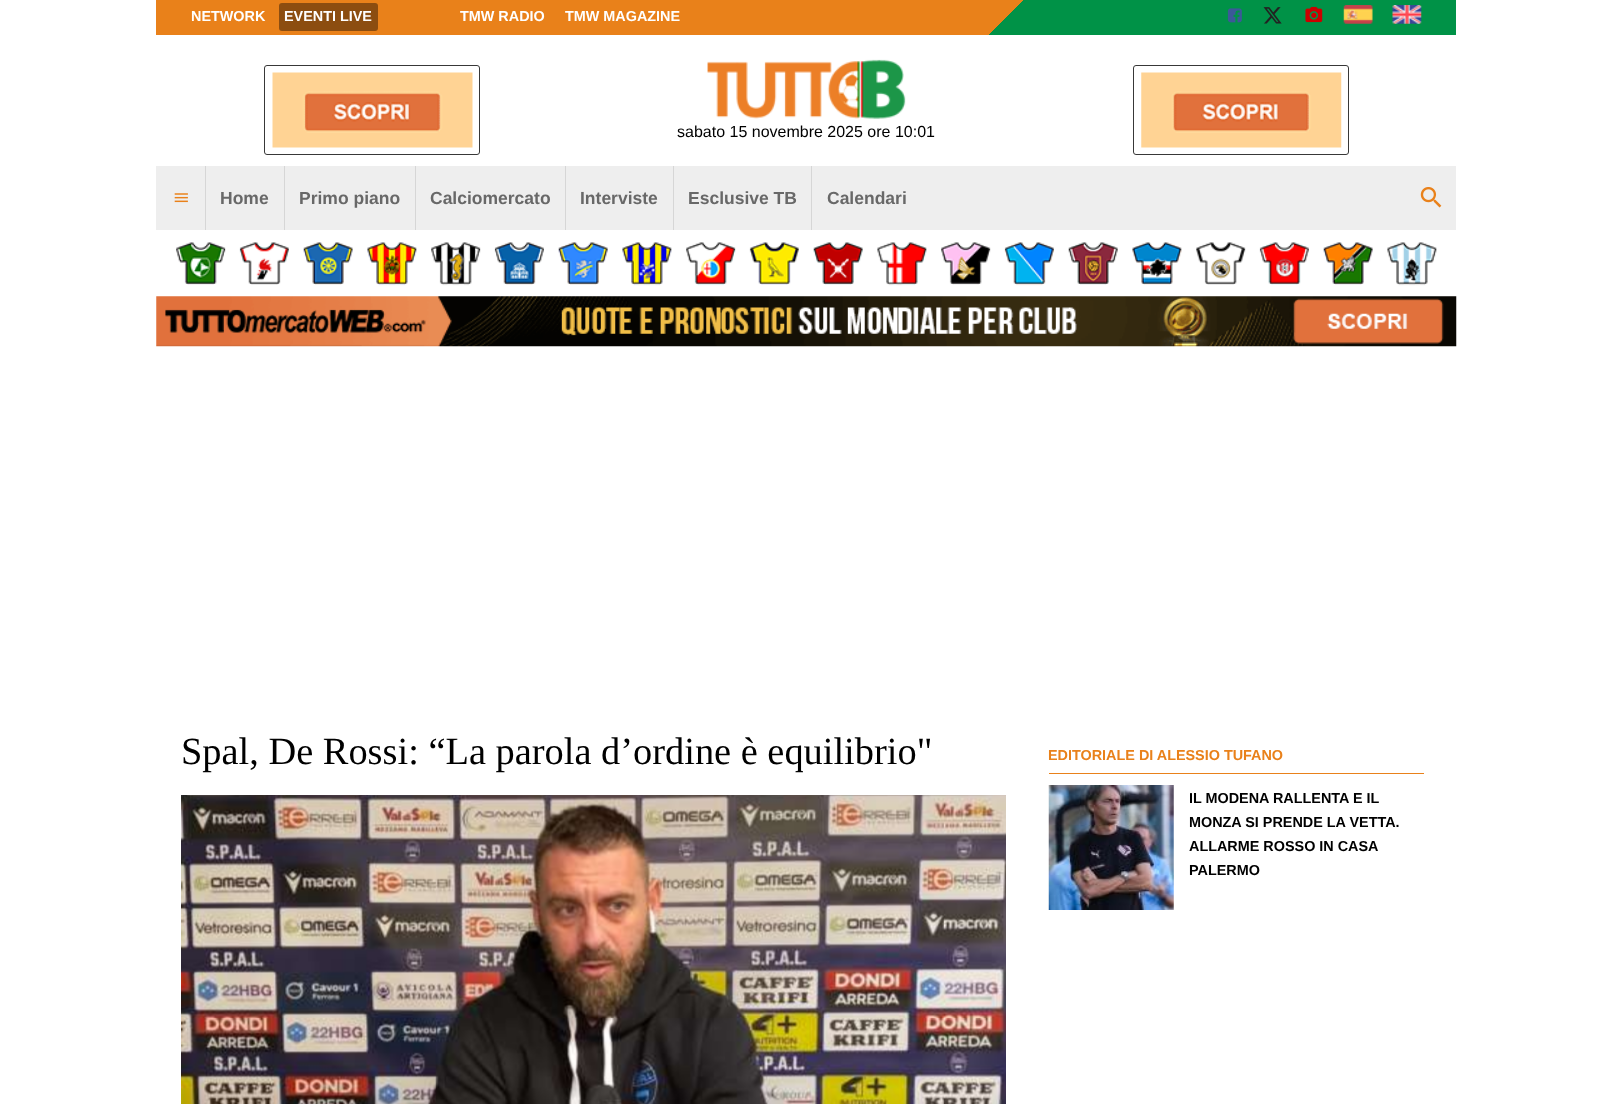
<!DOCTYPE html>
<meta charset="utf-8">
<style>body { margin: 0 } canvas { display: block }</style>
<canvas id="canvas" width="1612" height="1104"></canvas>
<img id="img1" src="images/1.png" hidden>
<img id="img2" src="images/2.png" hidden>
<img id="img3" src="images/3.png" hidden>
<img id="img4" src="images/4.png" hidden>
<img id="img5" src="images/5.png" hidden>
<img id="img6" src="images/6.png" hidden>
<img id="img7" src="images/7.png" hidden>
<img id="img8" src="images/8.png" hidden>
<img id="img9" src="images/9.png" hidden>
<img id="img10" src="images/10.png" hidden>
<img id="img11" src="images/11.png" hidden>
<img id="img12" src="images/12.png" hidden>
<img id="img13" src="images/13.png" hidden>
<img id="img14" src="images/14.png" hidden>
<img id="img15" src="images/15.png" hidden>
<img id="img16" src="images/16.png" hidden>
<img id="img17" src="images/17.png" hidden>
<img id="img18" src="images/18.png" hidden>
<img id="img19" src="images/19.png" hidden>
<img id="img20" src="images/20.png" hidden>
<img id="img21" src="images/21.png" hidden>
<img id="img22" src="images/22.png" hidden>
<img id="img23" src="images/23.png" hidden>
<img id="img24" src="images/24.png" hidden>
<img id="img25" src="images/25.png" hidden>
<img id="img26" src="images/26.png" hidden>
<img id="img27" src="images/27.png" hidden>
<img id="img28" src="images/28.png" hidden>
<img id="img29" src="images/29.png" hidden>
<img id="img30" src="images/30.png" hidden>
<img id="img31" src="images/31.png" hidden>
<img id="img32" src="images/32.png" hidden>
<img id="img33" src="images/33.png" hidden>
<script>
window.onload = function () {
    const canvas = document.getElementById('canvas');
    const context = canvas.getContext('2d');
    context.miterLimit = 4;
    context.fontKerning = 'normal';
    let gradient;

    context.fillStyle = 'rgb(255, 255, 255)';
    context.fillRect(0, 0, 1612, 1104);
    gradient = context.createLinearGradient(472, -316, 1140, 351);
    gradient.addColorStop(0.65, 'rgb(233, 129, 26)');
    gradient.addColorStop(0.65, 'rgb(0, 146, 71)');
    gradient.addColorStop(1, 'rgb(0, 146, 71)');
    context.fillStyle = gradient;
    context.fillRect(156, 0, 1300, 35);
    context.fillStyle = 'rgb(140, 77, 16)';
    context.beginPath();
    context.roundRect(279, 3, 99, 28, 3);
    context.fill();
    context.drawImage(document.getElementById('img1'), 1227, 8, 15, 15);
    context.drawImage(document.getElementById('img2'), 1263, 7, 19, 17);
    context.drawImage(document.getElementById('img3'), 1305, 6, 18, 17);
    context.drawImage(document.getElementById('img4'), 1343, 5, 30, 19);
    context.drawImage(document.getElementById('img5'), 1392, 5, 30, 19);
    context.beginPath();
    context.roundRect(264.5, 65.5, 215, 89, 2.5);
    context.strokeStyle = 'rgb(56, 56, 56)';
    context.stroke();
    context.drawImage(document.getElementById('img6'), 272, 72, 201, 76);
    context.drawImage(document.getElementById('img7'), 707, 59, 199, 60);
    context.beginPath();
    context.roundRect(1133.5, 65.5, 215, 89, 2.5);
    context.stroke();
    context.drawImage(document.getElementById('img8'), 1141, 72, 201, 76);
    context.fillStyle = 'rgb(238, 238, 238)';
    context.fillRect(156, 166, 1300, 64);
    context.drawImage(document.getElementById('img9'), 174, 193, 14, 10);
    context.fillStyle = 'rgb(214, 214, 214)';
    context.fillRect(205, 166, 1, 64);
    context.fillRect(284, 166, 1, 64);
    context.fillRect(415, 166, 1, 64);
    context.fillRect(565, 166, 1, 64);
    context.fillRect(673, 166, 1, 64);
    context.fillRect(811, 166, 1, 64);
    context.drawImage(document.getElementById('img10'), 1420, 187, 22, 21);
    context.drawImage(document.getElementById('img11'), 176, 242, 50, 43);
    context.drawImage(document.getElementById('img12'), 239, 242, 50, 43);
    context.drawImage(document.getElementById('img13'), 303, 242, 50, 43);
    context.drawImage(document.getElementById('img14'), 367, 242, 50, 44);
    context.drawImage(document.getElementById('img15'), 431, 242, 50, 44);
    context.drawImage(document.getElementById('img16'), 494, 242, 50, 43);
    context.drawImage(document.getElementById('img17'), 558, 242, 50, 43);
    context.drawImage(document.getElementById('img18'), 622, 242, 50, 44);
    context.drawImage(document.getElementById('img19'), 686, 242, 50, 44);
    context.drawImage(document.getElementById('img20'), 749, 242, 50, 43);
    context.drawImage(document.getElementById('img21'), 813, 242, 50, 43);
    context.drawImage(document.getElementById('img22'), 877, 242, 50, 44);
    context.drawImage(document.getElementById('img23'), 941, 242, 50, 43);
    context.drawImage(document.getElementById('img24'), 1004, 242, 50, 44);
    context.drawImage(document.getElementById('img25'), 1068, 242, 50, 43);
    context.drawImage(document.getElementById('img26'), 1132, 242, 50, 43);
    context.drawImage(document.getElementById('img27'), 1196, 242, 50, 43);
    context.drawImage(document.getElementById('img28'), 1259, 242, 50, 43);
    context.drawImage(document.getElementById('img29'), 1323, 242, 50, 43);
    context.drawImage(document.getElementById('img30'), 1387, 242, 50, 44);
    context.drawImage(document.getElementById('img31'), 156, 296, 1301, 51);
    context.drawImage(document.getElementById('img32'), 181, 795, 825, 309);
    context.fillStyle = 'rgb(233, 129, 26)';
    context.fillRect(1049, 773, 375, 1);
    context.drawImage(document.getElementById('img33'), 1048, 785, 126, 125);
    context.font = 'bold 14.4px Liberation Sans';
    context.fillStyle = 'rgb(255, 255, 255)';
    context.fillText('NETWORK', 191, 21);
    context.fillText('EVENTI LIVE', 284, 21);
    context.fillText('TMW RADIO', 460, 21);
    context.fillText('TMW MAGAZINE', 565, 21);
    context.font = '16px Liberation Sans';
    context.fillStyle = 'rgb(0, 0, 0)';
    context.fillText('sabato 15 novembre 2025 ore 10:01', 677, 137);
    context.font = 'bold 17.5px Liberation Sans';
    context.fillStyle = 'rgb(104, 104, 104)';
    context.fillText('Home', 220, 204);
    context.fillText('Primo piano', 299, 204);
    context.fillText('Calciomercato', 430, 204);
    context.fillText('Interviste', 580, 204);
    context.fillText('Esclusive TB', 688, 204);
    context.fillText('Calendari', 827, 204);
    context.font = '38.4px Liberation Serif';
    context.fillStyle = 'rgb(0, 0, 0)';
    context.fillText('Spal, De Rossi: “La parola d’ordine è equilibrio"', 181, 764);
    context.font = 'bold 14.4px Liberation Sans';
    context.fillStyle = 'rgb(233, 129, 26)';
    context.fillText('EDITORIALE DI ALESSIO TUFANO', 1048, 760);
    context.fillStyle = 'rgb(0, 0, 0)';
    context.fillText('IL MODENA RALLENTA E IL', 1189, 803);
    context.fillText('MONZA SI PRENDE LA VETTA.', 1189, 827);
    context.fillText('ALLARME ROSSO IN CASA', 1189, 851);
    context.fillText('PALERMO', 1189, 875);
};
</script>
